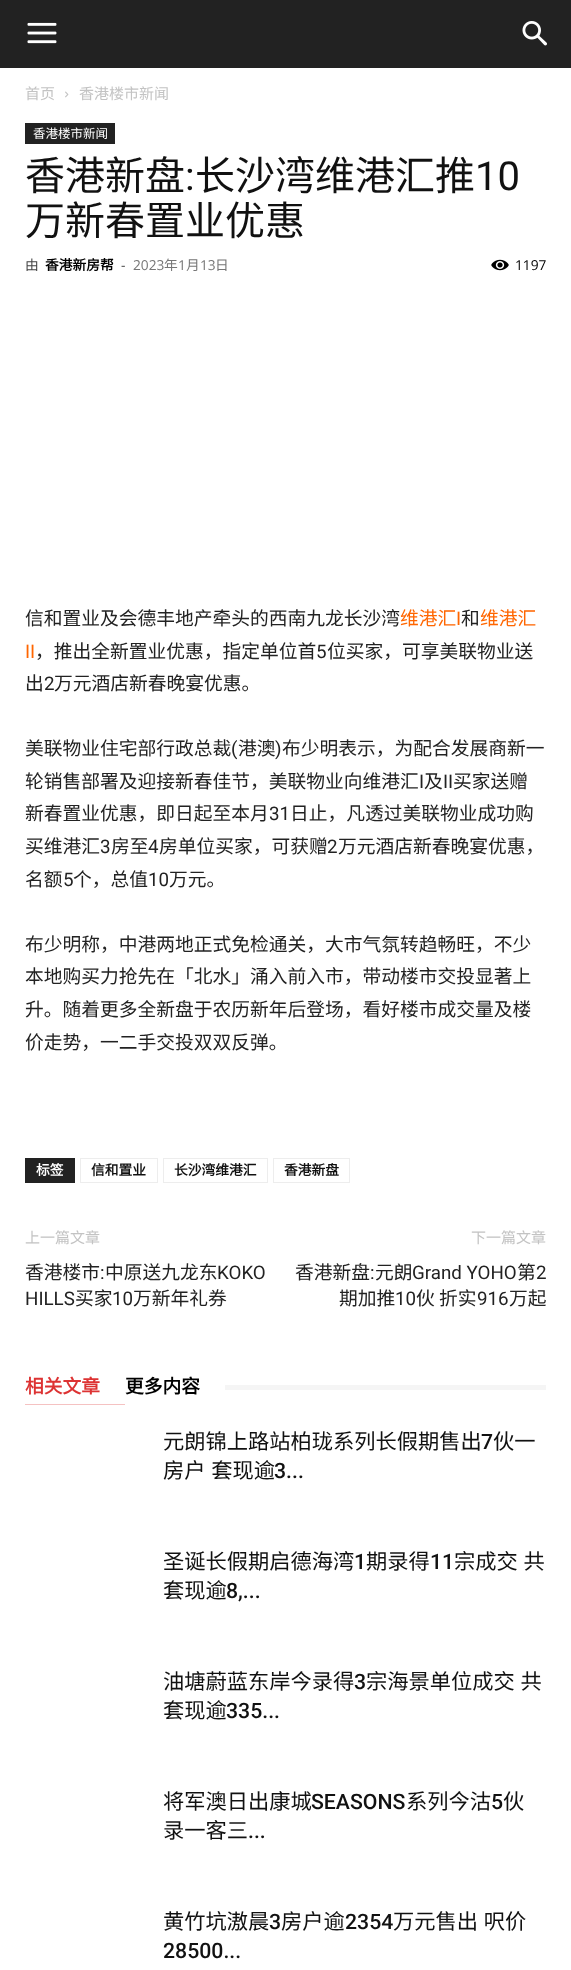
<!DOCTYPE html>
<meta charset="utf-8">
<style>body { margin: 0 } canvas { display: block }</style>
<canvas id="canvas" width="571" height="1970"></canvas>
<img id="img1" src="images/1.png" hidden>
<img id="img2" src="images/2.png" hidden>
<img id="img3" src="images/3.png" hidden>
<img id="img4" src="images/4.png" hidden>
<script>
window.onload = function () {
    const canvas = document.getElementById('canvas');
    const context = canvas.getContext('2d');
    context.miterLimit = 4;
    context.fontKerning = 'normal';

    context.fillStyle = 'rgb(255, 255, 255)';
    context.fillRect(0, 0, 571, 1970);
    context.fillStyle = 'rgb(34, 34, 34)';
    context.fillRect(0, 0, 571, 68);
    context.drawImage(document.getElementById('img1'), 27, 22, 30, 22);
    context.drawImage(document.getElementById('img2'), 522, 21, 25, 25);
    context.drawImage(document.getElementById('img3'), 65, 91, 4, 7);
    context.fillRect(25, 123, 90, 21);
    context.drawImage(document.getElementById('img4'), 491, 259, 18, 12);
    context.fillRect(25, 1158, 50, 25);
    context.strokeStyle = 'rgb(237, 237, 237)';
    context.strokeRect(80.5, 1158.5, 77, 24);
    context.strokeRect(163.5, 1158.5, 104, 24);
    context.strokeRect(273.5, 1158.5, 76, 24);
    context.fillStyle = 'rgb(245, 245, 245)';
    context.fillRect(225, 1385, 321, 5);
    context.fillStyle = 'rgb(245, 194, 194)';
    context.fillRect(25, 1404, 100, 1);
    context.font = '15px Noto Sans CJK SC';
    context.fillStyle = 'rgb(195, 195, 195)';
    context.fillText('首页', 25, 99);
    context.fillText('香港楼市新闻', 79, 99);
    context.font = '12.5px Noto Sans CJK SC';
    context.fillStyle = 'rgb(255, 255, 255)';
    context.fillText('香港楼市新闻', 33, 138);
    context.font = '40px Noto Sans CJK SC';
    context.fillStyle = 'rgb(17, 17, 17)';
    context.fillText('香港新盘', 25, 190);
    context.font = '40px Roboto';
    context.fillText(':', 185, 190);
    context.font = '40px Noto Sans CJK SC';
    context.fillText('长沙湾维港汇推', 195, 190);
    context.font = '40px Roboto';
    context.fillText('10', 475, 190);
    context.font = '40px Noto Sans CJK SC';
    context.fillText('万新春置业优惠', 25, 235);
    context.font = '13.75px Noto Sans CJK SC';
    context.fillStyle = 'rgb(68, 68, 68)';
    context.fillText('由', 25, 270);
    context.font = 'bold 13.75px Noto Sans CJK SC';
    context.fillStyle = 'rgb(0, 0, 0)';
    context.fillText('香港新房帮', 45, 270);
    context.font = '13.75px Open Sans';
    context.fillStyle = 'rgb(68, 68, 68)';
    context.fillText('-', 121, 270);
    context.fillStyle = 'rgb(118, 118, 118)';
    context.fillText('2023', 133, 270);
    context.font = '13.75px Noto Sans CJK SC';
    context.fillText('年', 164, 270);
    context.font = '13.75px Open Sans';
    context.fillText('1', 178, 270);
    context.font = '13.75px Noto Sans CJK SC';
    context.fillText('月', 186, 270);
    context.font = '13.75px Open Sans';
    context.fillText('13', 200, 270);
    context.font = '13.75px Noto Sans CJK SC';
    context.fillText('日', 215, 270);
    context.font = '13.75px Open Sans';
    context.fillStyle = 'rgb(0, 0, 0)';
    context.fillText('1197', 515, 270);
    context.font = '18.75px Noto Sans CJK SC';
    context.fillStyle = 'rgb(34, 34, 34)';
    context.fillText('信和置业及会德丰地产牵头的西南九龙长沙湾', 25, 625);
    context.fillStyle = 'rgb(255, 102, 0)';
    context.fillText('维港汇', 400, 625);
    context.font = '18.75px Roboto';
    context.fillText('I', 456, 625);
    context.font = '18.75px Noto Sans CJK SC';
    context.fillStyle = 'rgb(34, 34, 34)';
    context.fillText('和', 461, 625);
    context.fillStyle = 'rgb(255, 102, 0)';
    context.fillText('维港汇', 480, 625);
    context.font = '18.75px Roboto';
    context.fillText('II', 25, 658);
    context.font = '18.75px Noto Sans CJK SC';
    context.fillStyle = 'rgb(34, 34, 34)';
    context.fillText('，推出全新置业优惠，指定单位首', 35, 658);
    context.font = '18.75px Roboto';
    context.fillText('5', 316, 658);
    context.font = '18.75px Noto Sans CJK SC';
    context.fillText('位买家，可享美联物业送', 327, 658);
    context.fillText('出', 25, 690);
    context.font = '18.75px Roboto';
    context.fillText('2', 44, 690);
    context.font = '18.75px Noto Sans CJK SC';
    context.fillText('万元酒店新春晚宴优惠。', 54, 690);
    context.fillText('美联物业住宅部行政总裁', 25, 755);
    context.font = '18.75px Roboto';
    context.fillText('(', 231, 755);
    context.font = '18.75px Noto Sans CJK SC';
    context.fillText('港澳', 238, 755);
    context.font = '18.75px Roboto';
    context.fillText(')', 275, 755);
    context.font = '18.75px Noto Sans CJK SC';
    context.fillText('布少明表示，为配合发展商新一', 282, 755);
    context.fillText('轮销售部署及迎接新春佳节，美联物业向维港汇', 25, 788);
    context.font = '18.75px Roboto';
    context.fillText('I', 419, 788);
    context.font = '18.75px Noto Sans CJK SC';
    context.fillText('及', 424, 788);
    context.font = '18.75px Roboto';
    context.fillText('II', 443, 788);
    context.font = '18.75px Noto Sans CJK SC';
    context.fillText('买家送赠', 453, 788);
    context.fillText('新春置业优惠，即日起至本月', 25, 820);
    context.font = '18.75px Roboto';
    context.fillText('31', 269, 820);
    context.font = '18.75px Noto Sans CJK SC';
    context.fillText('日止，凡透过美联物业成功购', 290, 820);
    context.fillText('买维港汇', 25, 853);
    context.font = '18.75px Roboto';
    context.fillText('3', 100, 853);
    context.font = '18.75px Noto Sans CJK SC';
    context.fillText('房至', 111, 853);
    context.font = '18.75px Roboto';
    context.fillText('4', 148, 853);
    context.font = '18.75px Noto Sans CJK SC';
    context.fillText('房单位买家，可获赠', 159, 853);
    context.font = '18.75px Roboto';
    context.fillText('2', 327, 853);
    context.font = '18.75px Noto Sans CJK SC';
    context.fillText('万元酒店新春晚宴优惠，', 338, 853);
    context.fillText('名额', 25, 886);
    context.font = '18.75px Roboto';
    context.fillText('5', 63, 886);
    context.font = '18.75px Noto Sans CJK SC';
    context.fillText('个，总值', 73, 886);
    context.font = '18.75px Roboto';
    context.fillText('10', 148, 886);
    context.font = '18.75px Noto Sans CJK SC';
    context.fillText('万元。', 169, 886);
    context.fillText('布少明称，中港两地正式免检通关，大市气氛转趋畅旺，不少', 25, 951);
    context.fillText('本地购买力抢先在「北水」涌入前入市，带动楼市交投显著上', 25, 983);
    context.fillText('升。随着更多全新盘于农历新年后登场，看好楼市成交量及楼', 25, 1016);
    context.fillText('价走势，一二手交投双双反弹。', 25, 1049);
    context.font = 'bold 13.75px Noto Sans CJK SC';
    context.fillStyle = 'rgb(255, 255, 255)';
    context.fillText('标签', 36, 1175);
    context.fillStyle = 'rgb(17, 17, 17)';
    context.fillText('信和置业', 91, 1175);
    context.fillText('长沙湾维港汇', 174, 1175);
    context.fillText('香港新盘', 284, 1175);
    context.font = '15px Noto Sans CJK SC';
    context.fillStyle = 'rgb(195, 195, 195)';
    context.fillText('上一篇文章', 25, 1243);
    context.font = '18.75px Noto Sans CJK SC';
    context.fillStyle = 'rgb(34, 34, 34)';
    context.fillText('香港楼市', 25, 1279);
    context.font = '18.75px Roboto';
    context.fillText(':', 100, 1279);
    context.font = '18.75px Noto Sans CJK SC';
    context.fillText('中原送九龙东', 105, 1279);
    context.font = '18.75px Roboto';
    context.fillText('KOKO', 217, 1279);
    context.fillText('HILLS', 25, 1305);
    context.font = '18.75px Noto Sans CJK SC';
    context.fillText('买家', 75, 1305);
    context.font = '18.75px Roboto';
    context.fillText('10', 112, 1305);
    context.font = '18.75px Noto Sans CJK SC';
    context.fillText('万新年礼券', 133, 1305);
    context.font = '15px Noto Sans CJK SC';
    context.fillStyle = 'rgb(195, 195, 195)';
    context.fillText('下一篇文章', 471, 1243);
    context.font = '18.75px Noto Sans CJK SC';
    context.fillStyle = 'rgb(34, 34, 34)';
    context.fillText('香港新盘', 295, 1279);
    context.font = '18.75px Roboto';
    context.fillText(':', 370, 1279);
    context.font = '18.75px Noto Sans CJK SC';
    context.fillText('元朗', 375, 1279);
    context.font = '18.75px Roboto';
    context.fillText('Grand YOHO', 412, 1279);
    context.font = '18.75px Noto Sans CJK SC';
    context.fillText('第', 517, 1279);
    context.font = '18.75px Roboto';
    context.fillText('2', 536, 1279);
    context.font = '18.75px Noto Sans CJK SC';
    context.fillText('期加推', 339, 1305);
    context.font = '18.75px Roboto';
    context.fillText('10', 395, 1305);
    context.font = '18.75px Noto Sans CJK SC';
    context.fillText('伙 折实', 416, 1305);
    context.font = '18.75px Roboto';
    context.fillText('916', 477, 1305);
    context.font = '18.75px Noto Sans CJK SC';
    context.fillText('万起', 509, 1305);
    context.font = 'bold 18.75px Noto Sans CJK SC';
    context.fillStyle = 'rgb(221, 51, 51)';
    context.fillText('相关文章', 25, 1393);
    context.fillStyle = 'rgb(0, 0, 0)';
    context.fillText('更多内容', 125, 1393);
    context.font = '21.25px Noto Sans CJK SC';
    context.fillStyle = 'rgb(17, 17, 17)';
    context.fillText('元朗锦上路站柏珑系列长假期售出', 163, 1449);
    context.font = '500 21.25px Roboto';
    context.fillText('7', 481, 1449);
    context.font = '21.25px Noto Sans CJK SC';
    context.fillText('伙一', 493, 1449);
    context.wordSpacing = '1px';
    context.fillText('房户 套现逾', 163, 1478);
    context.wordSpacing = '0px';
    context.font = '500 21.25px Roboto';
    context.fillText('3...', 274, 1478);
    context.font = '21.25px Noto Sans CJK SC';
    context.fillText('圣诞长假期启德海湾', 163, 1569);
    context.font = '500 21.25px Roboto';
    context.fillText('1', 354, 1569);
    context.font = '21.25px Noto Sans CJK SC';
    context.fillText('期录得', 366, 1569);
    context.font = '500 21.25px Roboto';
    context.fillText('11', 430, 1569);
    context.wordSpacing = '1px';
    context.font = '21.25px Noto Sans CJK SC';
    context.fillText('宗成交 共', 454, 1569);
    context.wordSpacing = '0px';
    context.fillText('套现逾', 163, 1598);
    context.font = '500 21.25px Roboto';
    context.fillText('8,...', 226, 1598);
    context.font = '21.25px Noto Sans CJK SC';
    context.fillText('油塘蔚蓝东岸今录得', 163, 1689);
    context.font = '500 21.25px Roboto';
    context.fillText('3', 354, 1689);
    context.wordSpacing = '1px';
    context.font = '21.25px Noto Sans CJK SC';
    context.fillText('宗海景单位成交 共', 366, 1689);
    context.wordSpacing = '0px';
    context.fillText('套现逾', 163, 1718);
    context.font = '500 21.25px Roboto';
    context.fillText('335...', 226, 1718);
    context.font = '21.25px Noto Sans CJK SC';
    context.fillText('将军澳日出康城', 163, 1809);
    context.font = '500 21.25px Roboto';
    context.fillText('SEASONS', 311, 1809);
    context.font = '21.25px Noto Sans CJK SC';
    context.fillText('系列今沽', 406, 1809);
    context.font = '500 21.25px Roboto';
    context.fillText('5', 491, 1809);
    context.font = '21.25px Noto Sans CJK SC';
    context.fillText('伙', 503, 1809);
    context.fillText('录一客三', 163, 1838);
    context.font = '500 21.25px Roboto';
    context.fillText('...', 248, 1838);
    context.font = '21.25px Noto Sans CJK SC';
    context.fillText('黄竹坑滶晨', 163, 1929);
    context.font = '500 21.25px Roboto';
    context.fillText('3', 269, 1929);
    context.font = '21.25px Noto Sans CJK SC';
    context.fillText('房户逾', 281, 1929);
    context.font = '500 21.25px Roboto';
    context.fillText('2354', 345, 1929);
    context.wordSpacing = '1px';
    context.font = '21.25px Noto Sans CJK SC';
    context.fillText('万元售出 呎价', 393, 1929);
    context.wordSpacing = '0px';
    context.font = '500 21.25px Roboto';
    context.fillText('28500...', 163, 1958);
};
</script>
